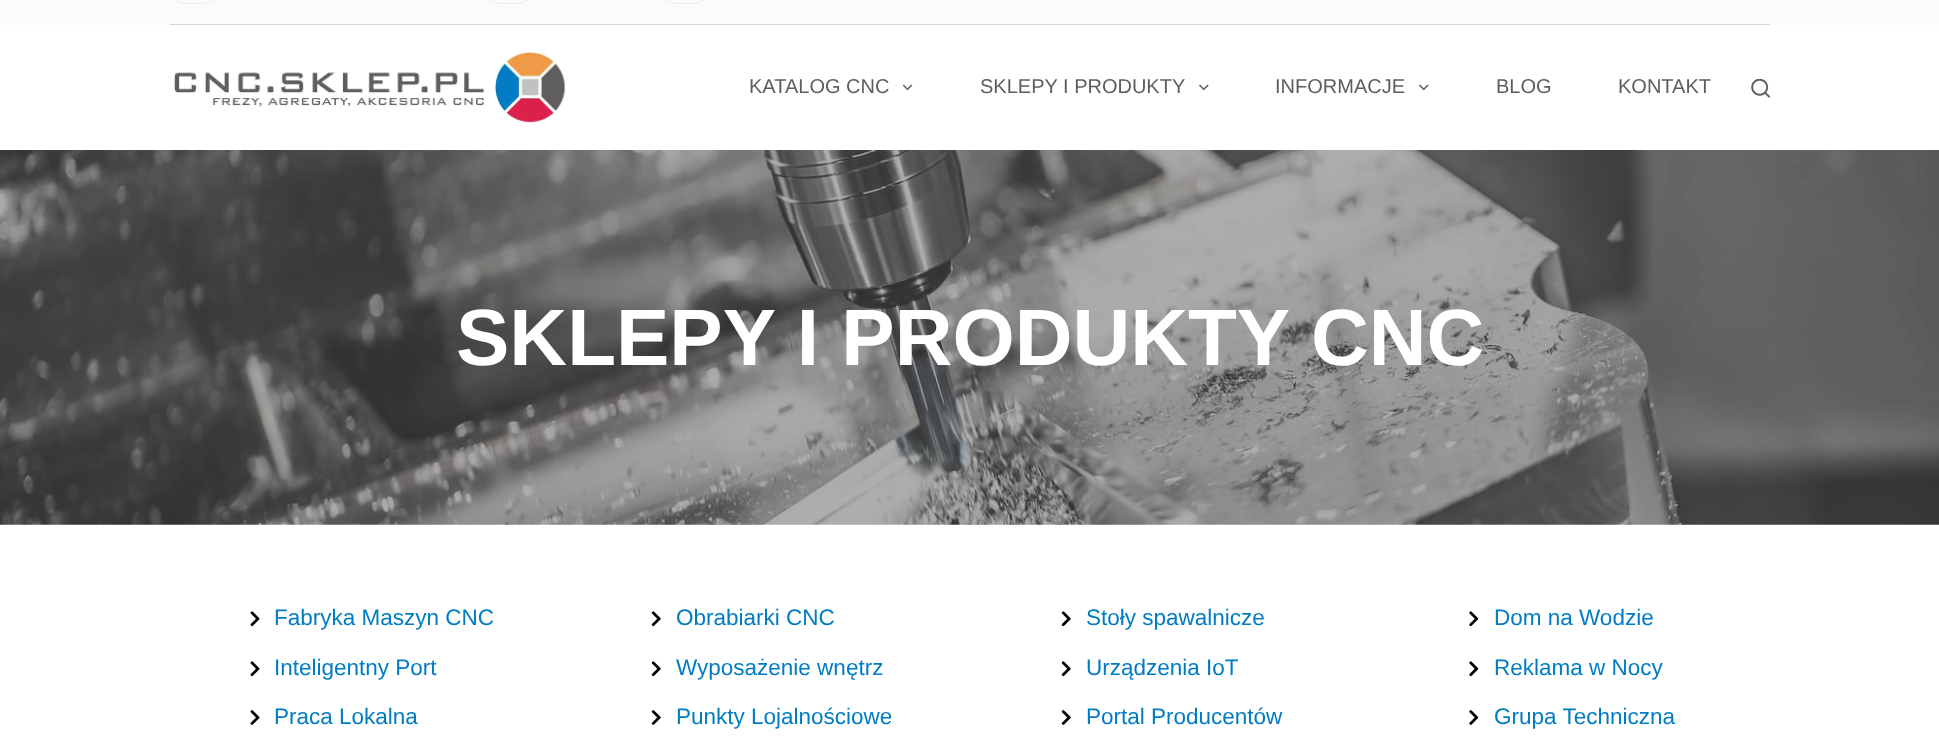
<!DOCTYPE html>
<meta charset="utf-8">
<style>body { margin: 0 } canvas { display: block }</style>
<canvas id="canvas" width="1939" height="754"></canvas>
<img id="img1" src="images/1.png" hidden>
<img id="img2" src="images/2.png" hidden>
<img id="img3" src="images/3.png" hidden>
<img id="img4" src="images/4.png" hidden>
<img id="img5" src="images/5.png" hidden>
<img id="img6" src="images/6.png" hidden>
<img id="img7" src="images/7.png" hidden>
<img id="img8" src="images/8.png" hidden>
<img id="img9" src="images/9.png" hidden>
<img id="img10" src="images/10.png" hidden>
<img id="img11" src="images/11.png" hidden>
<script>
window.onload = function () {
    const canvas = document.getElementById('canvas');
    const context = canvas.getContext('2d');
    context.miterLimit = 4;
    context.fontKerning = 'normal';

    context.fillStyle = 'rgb(255, 255, 255)';
    context.fillRect(0, 0, 1939, 754);
    context.fillStyle = 'rgb(250, 251, 252)';
    context.fillRect(0, 0, 1939, 25);
    context.fillStyle = 'rgb(209, 213, 218)';
    context.fillRect(170, 24, 1600, 1);
    context.beginPath();
    context.roundRect(170.5, -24.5, 47, 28, 23.5);
    context.strokeStyle = 'rgb(234, 237, 240)';
    context.stroke();
    context.beginPath();
    context.roundRect(485.5, -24.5, 47, 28, 23.5);
    context.stroke();
    context.beginPath();
    context.roundRect(661.5, -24.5, 47, 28, 23.5);
    context.stroke();
    context.drawImage(document.getElementById('img1'), 174, 51, 392, 72);
    context.drawImage(document.getElementById('img2'), 903, 84, 10, 7);
    context.drawImage(document.getElementById('img3'), 1199, 84, 10, 7);
    context.drawImage(document.getElementById('img3'), 1419, 84, 10, 7);
    context.drawImage(document.getElementById('img4'), 1751, 79, 19, 19);
    context.drawImage(document.getElementById('img5'), 0, 150, 1939, 375);
    context.drawImage(document.getElementById('img6'), 250, 611, 10, 16);
    context.drawImage(document.getElementById('img6'), 250, 661, 10, 16);
    context.drawImage(document.getElementById('img7'), 250, 710, 10, 15);
    context.drawImage(document.getElementById('img8'), 651, 611, 10, 16);
    context.drawImage(document.getElementById('img8'), 651, 661, 10, 16);
    context.drawImage(document.getElementById('img9'), 651, 710, 10, 15);
    context.drawImage(document.getElementById('img8'), 1061, 611, 10, 16);
    context.drawImage(document.getElementById('img8'), 1061, 661, 10, 16);
    context.drawImage(document.getElementById('img9'), 1061, 710, 10, 15);
    context.drawImage(document.getElementById('img10'), 1469, 611, 10, 16);
    context.drawImage(document.getElementById('img10'), 1469, 661, 10, 16);
    context.drawImage(document.getElementById('img11'), 1469, 710, 10, 15);
    context.font = '20px Liberation Sans';
    context.fillStyle = 'rgb(95, 93, 92)';
    context.fillText('KATALOG CNC', 749, 93);
    context.fillText('SKLEPY I PRODUKTY', 980, 93);
    context.fillText('INFORMACJE', 1275, 93);
    context.fillText('BLOG', 1496, 93);
    context.fillText('KONTAKT', 1618, 93);
    context.font = 'bold 80px Liberation Sans';
    context.fillStyle = 'rgb(255, 255, 255)';
    context.fillText('SKLEPY I PRODUKTY CNC', 456, 365);
    context.font = '22.5px Liberation Sans';
    context.fillStyle = 'rgb(0, 124, 194)';
    context.fillText('Fabryka Maszyn CNC', 274, 625);
    context.fillText('Inteligentny Port', 274, 675);
    context.fillText('Praca Lokalna', 274, 724);
    context.fillText('Obrabiarki CNC', 676, 625);
    context.fillText('Wyposażenie wnętrz', 676, 675);
    context.fillText('Punkty Lojalnościowe', 676, 724);
    context.fillText('Stoły spawalnicze', 1086, 625);
    context.fillText('Urządzenia IoT', 1086, 675);
    context.fillText('Portal Producentów', 1086, 724);
    context.fillText('Dom na Wodzie', 1494, 625);
    context.fillText('Reklama w Nocy', 1494, 675);
    context.fillText('Grupa Techniczna', 1494, 724);
};
</script>
